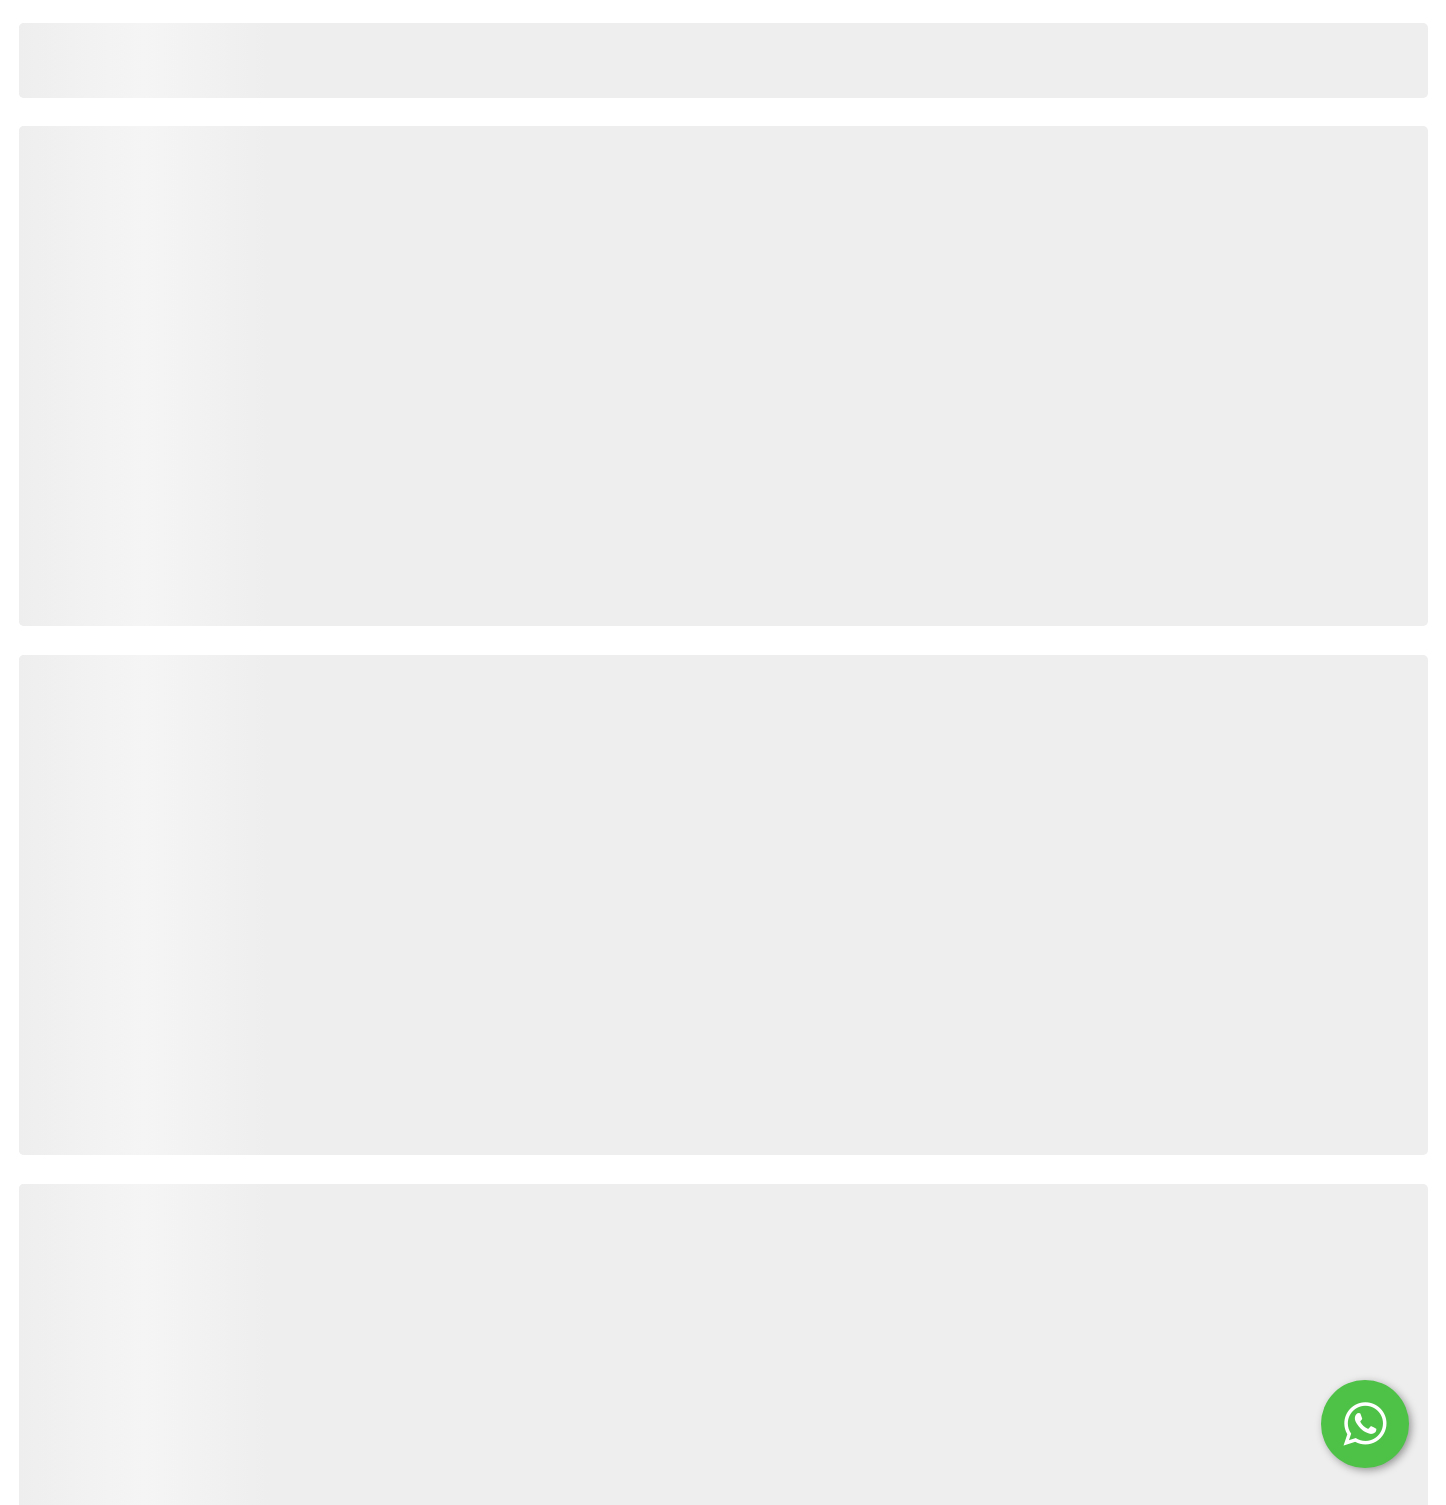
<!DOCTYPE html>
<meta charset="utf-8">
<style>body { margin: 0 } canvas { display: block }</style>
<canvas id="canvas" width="1446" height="1505"></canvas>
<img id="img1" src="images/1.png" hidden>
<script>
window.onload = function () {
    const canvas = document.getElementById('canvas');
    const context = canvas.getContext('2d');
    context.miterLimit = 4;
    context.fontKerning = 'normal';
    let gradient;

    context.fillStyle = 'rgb(255, 255, 255)';
    context.fillRect(0, 0, 1446, 1505);
    context.fillStyle = 'rgb(238, 238, 238)';
    context.beginPath();
    context.roundRect(19, 23, 1409, 75, 5);
    context.fill();
    gradient = context.createLinearGradient(19, 60, 269, 60);
    gradient.addColorStop(0, 'rgb(238, 238, 238)');
    gradient.addColorStop(0.5, 'rgb(245, 245, 245)');
    gradient.addColorStop(1, 'rgb(238, 238, 238)');
    context.fillStyle = gradient;
    context.beginPath();
    context.roundRect(19, 23, 250, 75, [5, 0, 0, 5]);
    context.fill();
    context.fillStyle = 'rgb(238, 238, 238)';
    context.beginPath();
    context.roundRect(19, 126, 1409, 500, 5);
    context.fill();
    gradient = context.createLinearGradient(19, 376, 269, 376);
    gradient.addColorStop(0, 'rgb(238, 238, 238)');
    gradient.addColorStop(0.5, 'rgb(245, 245, 245)');
    gradient.addColorStop(1, 'rgb(238, 238, 238)');
    context.fillStyle = gradient;
    context.beginPath();
    context.roundRect(19, 126, 250, 500, [5, 0, 0, 5]);
    context.fill();
    context.fillStyle = 'rgb(238, 238, 238)';
    context.beginPath();
    context.roundRect(19, 655, 1409, 500, 5);
    context.fill();
    gradient = context.createLinearGradient(19, 905, 269, 905);
    gradient.addColorStop(0, 'rgb(238, 238, 238)');
    gradient.addColorStop(0.5, 'rgb(245, 245, 245)');
    gradient.addColorStop(1, 'rgb(238, 238, 238)');
    context.fillStyle = gradient;
    context.beginPath();
    context.roundRect(19, 655, 250, 500, [5, 0, 0, 5]);
    context.fill();
    context.fillStyle = 'rgb(238, 238, 238)';
    context.beginPath();
    context.roundRect(19, 1184, 1409, 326, 5);
    context.fill();
    gradient = context.createLinearGradient(19, 1434, 269, 1434);
    gradient.addColorStop(0, 'rgb(238, 238, 238)');
    gradient.addColorStop(0.5, 'rgb(245, 245, 245)');
    gradient.addColorStop(1, 'rgb(238, 238, 238)');
    context.fillStyle = gradient;
    context.beginPath();
    context.moveTo(24, 1184);
    context.lineTo(269, 1184);
    context.lineTo(269, 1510);
    context.lineTo(24, 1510);
    context.bezierCurveTo(21, 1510, 19, 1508, 19, 1505);
    context.lineTo(19, 1189);
    context.bezierCurveTo(19, 1186, 21, 1184, 24, 1184);
    context.closePath();
    context.fill();
    context.fillStyle = 'rgba(0, 0, 0, 0.4)';
    context.filter = 'blur(4px)';
    context.beginPath();
    context.roundRect(1324, 1383, 87, 87, 43.5);
    context.fill();
    context.filter = 'none';
    context.fillStyle = 'rgb(77, 194, 71)';
    context.beginPath();
    context.arc(1365, 1424, 44, 0, 2 * Math.PI);
    context.fill();
    context.drawImage(document.getElementById('img1'), 1343, 1402, 44, 44);
};
</script>
